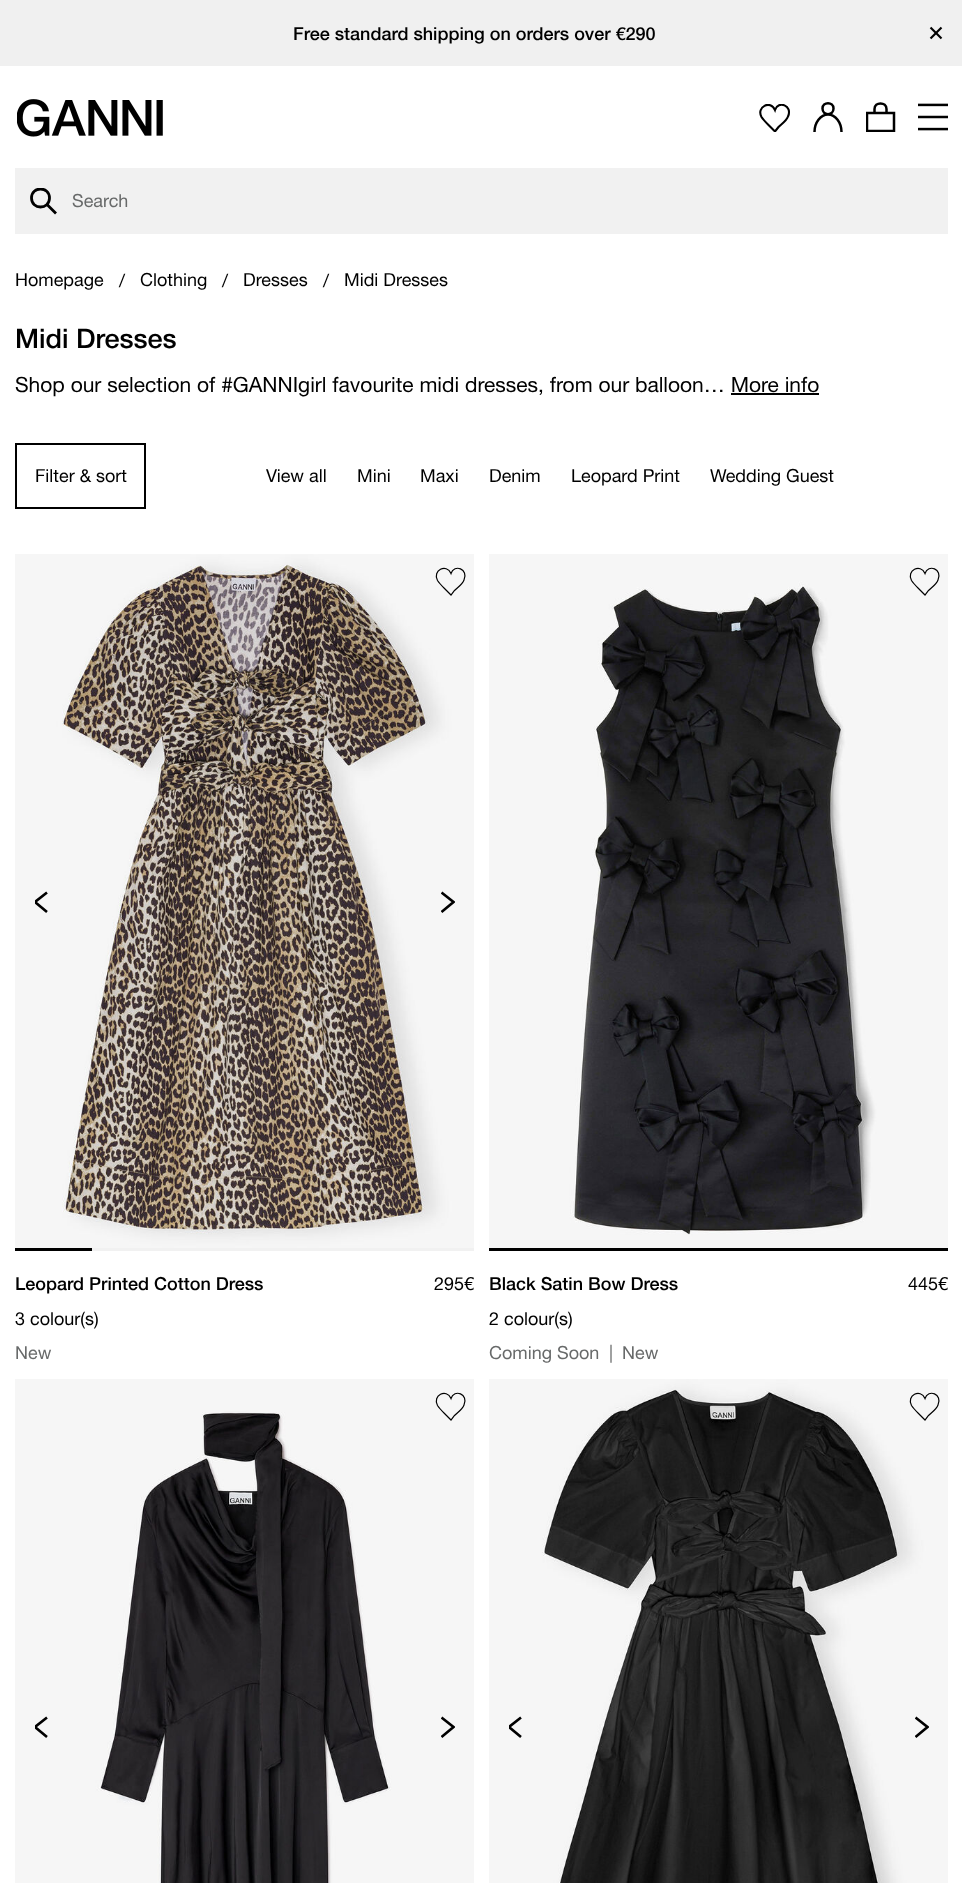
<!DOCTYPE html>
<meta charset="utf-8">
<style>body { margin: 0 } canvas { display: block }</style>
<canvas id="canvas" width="962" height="1883"></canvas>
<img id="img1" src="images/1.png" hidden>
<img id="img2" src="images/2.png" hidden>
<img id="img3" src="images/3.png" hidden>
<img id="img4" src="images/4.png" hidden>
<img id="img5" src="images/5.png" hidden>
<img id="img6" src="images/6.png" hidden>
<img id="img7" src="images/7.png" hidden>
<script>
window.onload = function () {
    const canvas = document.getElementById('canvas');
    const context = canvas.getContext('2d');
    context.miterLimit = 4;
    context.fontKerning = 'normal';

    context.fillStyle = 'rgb(255, 255, 255)';
    context.fillRect(0, 0, 962, 1883);
    context.fillStyle = 'rgb(240, 240, 240)';
    context.fillRect(0, 0, 962, 66);
    context.drawImage(document.getElementById('img1'), 929, 26, 14, 14);
    context.drawImage(document.getElementById('img2'), 17, 99, 146, 38);
    context.save();
    context.beginPath();
    context.rect(759, 104, 32, 28);
    context.clip();
    context.beginPath();
    context.moveTo(775, 110);
    context.bezierCurveTo(778, 100, 793, 105.5, 788, 116.5);
    context.bezierCurveTo(786.5, 121, 781.5, 124, 778.5, 127);
    context.lineTo(775, 131.5);
    context.lineTo(768.5, 125);
    context.bezierCurveTo(766, 122.5, 763.5, 120, 761.5, 117);
    context.bezierCurveTo(756, 107, 770.5, 99.5, 775, 110);
    context.closePath();
    context.strokeStyle = 'rgb(0, 0, 0)';
    context.lineWidth = 2.1;
    context.stroke();
    context.restore();
    context.beginPath();
    context.moveTo(841.5, 132);
    context.bezierCurveTo(841.5, 122.5, 835.5, 114.5, 828, 114.5);
    context.bezierCurveTo(820.5, 114.5, 814.5, 122.5, 814.5, 132);
    context.moveTo(833.5, 108.5);
    context.bezierCurveTo(833.5, 116, 822.5, 116, 822.5, 108.5);
    context.bezierCurveTo(822.5, 101.5, 833.5, 101.5, 833.5, 108.5);
    context.closePath();
    context.strokeStyle = 'rgb(0, 0, 0)';
    context.lineWidth = 2.5;
    context.stroke();
    context.save();
    context.beginPath();
    context.rect(866, 102, 30, 30);
    context.clip();
    context.beginPath();
    context.moveTo(867, 113);
    context.lineTo(894, 113);
    context.lineTo(894, 131);
    context.lineTo(867, 131);
    context.closePath();
    context.moveTo(886.5, 109);
    context.bezierCurveTo(886.5, 101.5, 874.5, 101.5, 874.5, 109);
    context.moveTo(874.5, 109);
    context.lineTo(874.5, 112.5);
    context.moveTo(886.5, 109);
    context.lineTo(886.5, 112.5);
    context.stroke();
    context.restore();
    context.drawImage(document.getElementById('img3'), 918, 103, 30, 28);
    context.fillStyle = 'rgb(241, 241, 241)';
    context.fillRect(15, 168, 933, 66);
    context.save();
    context.beginPath();
    context.rect(30, 188, 27, 27);
    context.clip();
    context.beginPath();
    context.moveTo(47, 204.5);
    context.lineTo(56, 213.5);
    context.moveTo(49.5, 198);
    context.bezierCurveTo(49.5, 210, 31.5, 210, 31.5, 198);
    context.bezierCurveTo(31.5, 186, 49.5, 186, 49.5, 198);
    context.closePath();
    context.lineWidth = 2.8;
    context.stroke();
    context.restore();
    context.fillStyle = 'rgb(0, 0, 0)';
    context.fillRect(731, 393, 88, 2);
    context.lineWidth = 2;
    context.strokeRect(16, 444, 129, 64);
    context.drawImage(document.getElementById('img4'), 15, 554, 459, 694);
    context.save();
    context.beginPath();
    context.rect(35, 891, 13, 23);
    context.clip();
    context.beginPath();
    context.moveTo(47, 912);
    context.lineTo(35, 902);
    context.lineTo(47, 892.5);
    context.lineWidth = 2.6;
    context.stroke();
    context.restore();
    context.save();
    context.beginPath();
    context.rect(441, 891, 14, 23);
    context.clip();
    context.beginPath();
    context.moveTo(441.5, 912);
    context.lineTo(453.5, 902);
    context.lineTo(441.5, 892.5);
    context.lineWidth = 2.6;
    context.stroke();
    context.restore();
    context.fillStyle = 'rgb(241, 241, 241)';
    context.fillRect(92, 1248, 382, 3);
    context.fillStyle = 'rgb(0, 0, 0)';
    context.fillRect(15, 1248, 77, 3);
    context.beginPath();
    context.moveTo(451, 573.5);
    context.bezierCurveTo(454, 563.5, 469, 569, 464, 580);
    context.bezierCurveTo(462.5, 584.5, 457.5, 587.5, 454.5, 590.5);
    context.lineTo(451, 595);
    context.lineTo(444.5, 588.5);
    context.bezierCurveTo(442, 586, 439.5, 583.5, 437.5, 580.5);
    context.bezierCurveTo(432, 570.5, 446.5, 563, 451, 573.5);
    context.closePath();
    context.lineWidth = 1.2;
    context.stroke();
    context.drawImage(document.getElementById('img5'), 489, 554, 459, 694);
    context.fillRect(489, 1248, 459, 3);
    context.beginPath();
    context.moveTo(925, 573.5);
    context.bezierCurveTo(928, 563.5, 943, 569, 938, 580);
    context.bezierCurveTo(936.5, 584.5, 931.5, 587.5, 928.5, 590.5);
    context.lineTo(925, 595);
    context.lineTo(918.5, 588.5);
    context.bezierCurveTo(916, 586, 913.5, 583.5, 911.5, 580.5);
    context.bezierCurveTo(906, 570.5, 920.5, 563, 925, 573.5);
    context.closePath();
    context.stroke();
    context.drawImage(document.getElementById('img6'), 15, 1379, 459, 504);
    context.save();
    context.beginPath();
    context.rect(35, 1716, 13, 23);
    context.clip();
    context.beginPath();
    context.moveTo(47, 1737);
    context.lineTo(35, 1727);
    context.lineTo(47, 1717.5);
    context.lineWidth = 2.6;
    context.stroke();
    context.restore();
    context.save();
    context.beginPath();
    context.rect(441, 1716, 14, 23);
    context.clip();
    context.beginPath();
    context.moveTo(441.5, 1737);
    context.lineTo(453.5, 1727);
    context.lineTo(441.5, 1717.5);
    context.lineWidth = 2.6;
    context.stroke();
    context.restore();
    context.beginPath();
    context.moveTo(451, 1398.5);
    context.bezierCurveTo(454, 1388.5, 469, 1394, 464, 1405);
    context.bezierCurveTo(462.5, 1409.5, 457.5, 1412.5, 454.5, 1415.5);
    context.lineTo(451, 1420);
    context.lineTo(444.5, 1413.5);
    context.bezierCurveTo(442, 1411, 439.5, 1408.5, 437.5, 1405.5);
    context.bezierCurveTo(432, 1395.5, 446.5, 1388, 451, 1398.5);
    context.closePath();
    context.stroke();
    context.drawImage(document.getElementById('img7'), 489, 1379, 459, 504);
    context.save();
    context.beginPath();
    context.rect(509, 1716, 13, 23);
    context.clip();
    context.beginPath();
    context.moveTo(521, 1737);
    context.lineTo(509, 1727);
    context.lineTo(521, 1717.5);
    context.lineWidth = 2.6;
    context.stroke();
    context.restore();
    context.save();
    context.beginPath();
    context.rect(915, 1716, 14, 23);
    context.clip();
    context.beginPath();
    context.moveTo(915.5, 1737);
    context.lineTo(927.5, 1727);
    context.lineTo(915.5, 1717.5);
    context.lineWidth = 2.6;
    context.stroke();
    context.restore();
    context.beginPath();
    context.moveTo(925, 1398.5);
    context.bezierCurveTo(928, 1388.5, 943, 1394, 938, 1405);
    context.bezierCurveTo(936.5, 1409.5, 931.5, 1412.5, 928.5, 1415.5);
    context.lineTo(925, 1420);
    context.lineTo(918.5, 1413.5);
    context.bezierCurveTo(916, 1411, 913.5, 1408.5, 911.5, 1405.5);
    context.bezierCurveTo(906, 1395.5, 920.5, 1388, 925, 1398.5);
    context.closePath();
    context.stroke();
    context.font = '500 18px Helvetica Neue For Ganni';
    context.fillText('Free standard shipping on orders over €290', 293, 40);
    context.font = '18px Helvetica Neue For Ganni';
    context.fillStyle = 'rgb(104, 106, 106)';
    context.fillText('Search', 72, 207);
    context.fillStyle = 'rgb(0, 0, 0)';
    context.fillText('Homepage', 15, 286);
    context.fillText('/', 119, 287);
    context.fillText('Clothing', 140, 286);
    context.fillText('/', 222, 287);
    context.fillText('Dresses', 243, 286);
    context.fillText('/', 323, 287);
    context.fillText('Midi Dresses', 344, 286);
    context.font = '500 27px Helvetica Neue For Ganni';
    context.fillText('Midi Dresses', 15, 348);
    context.font = '21px Helvetica Neue For Ganni';
    context.fillText('Shop our selection of #GANNIgirl favourite midi dresses, from our balloon… More info', 15, 392);
    context.font = '18px Helvetica Neue For Ganni';
    context.fillText('Filter & sort', 35, 482);
    context.fillText('View all', 266, 482);
    context.fillText('Mini', 357, 482);
    context.fillText('Maxi', 420, 482);
    context.fillText('Denim', 489, 482);
    context.fillText('Leopard Print', 571, 482);
    context.fillText('Wedding Guest', 710, 482);
    context.font = '500 18px Helvetica Neue For Ganni';
    context.fillText('Leopard Printed Cotton Dress', 15, 1290);
    context.font = '18px Helvetica Neue For Ganni';
    context.fillText('295€', 434, 1290);
    context.fillText('3 colour(s)', 15, 1325);
    context.fillStyle = 'rgb(104, 106, 106)';
    context.fillText('New', 15, 1359);
    context.font = '500 18px Helvetica Neue For Ganni';
    context.fillStyle = 'rgb(0, 0, 0)';
    context.fillText('Black Satin Bow Dress', 489, 1290);
    context.font = '18px Helvetica Neue For Ganni';
    context.fillText('445€', 908, 1290);
    context.fillText('2 colour(s)', 489, 1325);
    context.fillStyle = 'rgb(104, 106, 106)';
    context.fillText('Coming Soon', 489, 1359);
    context.fillText('|', 609, 1359);
    context.fillText('New', 622, 1359);
};
</script>
